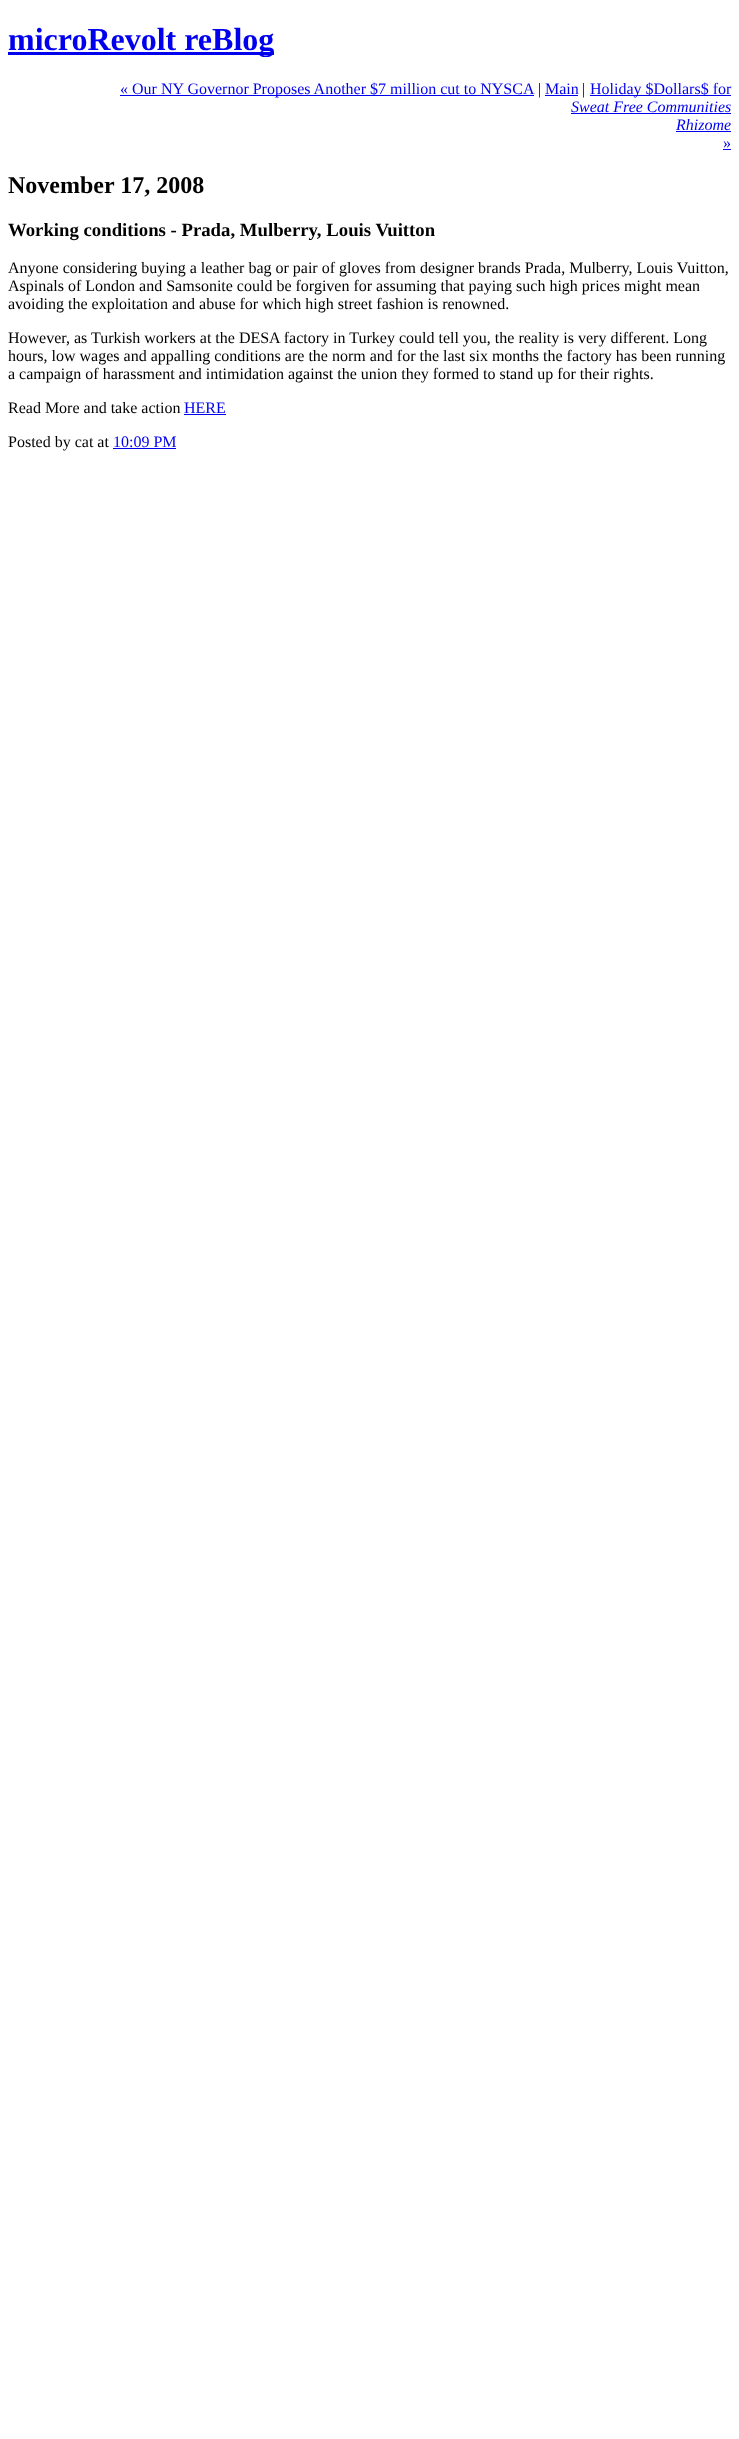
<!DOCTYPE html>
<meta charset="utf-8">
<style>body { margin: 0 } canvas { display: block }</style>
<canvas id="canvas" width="739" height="2439"></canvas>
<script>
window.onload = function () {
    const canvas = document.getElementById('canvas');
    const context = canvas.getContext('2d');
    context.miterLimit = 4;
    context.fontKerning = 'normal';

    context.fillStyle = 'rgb(255, 255, 255)';
    context.fillRect(0, 0, 739, 2439);
    context.fillStyle = 'rgb(0, 0, 238)';
    context.fillRect(8, 52, 266, 3);
    context.fillRect(120, 95, 414, 1);
    context.fillRect(545, 95, 33, 1);
    context.fillRect(590, 95, 141, 1);
    context.fillRect(571, 113, 160, 1);
    context.fillRect(676, 131, 55, 1);
    context.fillRect(723, 149, 8, 1);
    context.fillRect(184, 414, 42, 1);
    context.fillRect(113, 448, 63, 1);
    context.font = 'bold 32px Liberation Serif';
    context.fillText('microRevolt reBlog', 8, 50);
    context.font = '16px Liberation Serif';
    context.fillText('« Our NY Governor Proposes Another $7 million cut to NYSCA', 120, 94);
    context.fillStyle = 'rgb(0, 0, 0)';
    context.fillText('|', 538, 94);
    context.fillStyle = 'rgb(0, 0, 238)';
    context.fillText('Main', 545, 94);
    context.fillStyle = 'rgb(0, 0, 0)';
    context.fillText('|', 582, 94);
    context.fillStyle = 'rgb(0, 0, 238)';
    context.fillText('Holiday $Dollars$ for', 590, 94);
    context.font = 'italic 16px Liberation Serif';
    context.fillText('Sweat Free Communities', 571, 112);
    context.fillText('Rhizome', 676, 130);
    context.font = '16px Liberation Serif';
    context.fillText('»', 723, 148);
    context.font = 'bold 24px Liberation Serif';
    context.fillStyle = 'rgb(0, 0, 0)';
    context.fillText('November 17, 2008', 8, 193);
    context.font = 'bold 18.75px Liberation Serif';
    context.fillText('Working conditions - Prada, Mulberry, Louis Vuitton', 8, 236);
    context.font = '16px Liberation Serif';
    context.fillText('Anyone considering buying a leather bag or pair of gloves from designer brands Prada, Mulberry, Louis Vuitton,', 8, 273);
    context.fillText('Aspinals of London and Samsonite could be forgiven for assuming that paying such high prices might mean', 8, 291);
    context.fillText('avoiding the exploitation and abuse for which high street fashion is renowned.', 8, 309);
    context.fillText('However, as Turkish workers at the DESA factory in Turkey could tell you, the reality is very different. Long', 8, 343);
    context.fillText('hours, low wages and appalling conditions are the norm and for the last six months the factory has been running', 8, 361);
    context.fillText('a campaign of harassment and intimidation against the union they formed to stand up for their rights.', 8, 379);
    context.fillText('Read More and take action', 8, 413);
    context.fillStyle = 'rgb(0, 0, 238)';
    context.fillText('HERE', 184, 413);
    context.fillStyle = 'rgb(0, 0, 0)';
    context.fillText('Posted by cat at', 8, 447);
    context.fillStyle = 'rgb(0, 0, 238)';
    context.fillText('10:09 PM', 113, 447);
};
</script>
